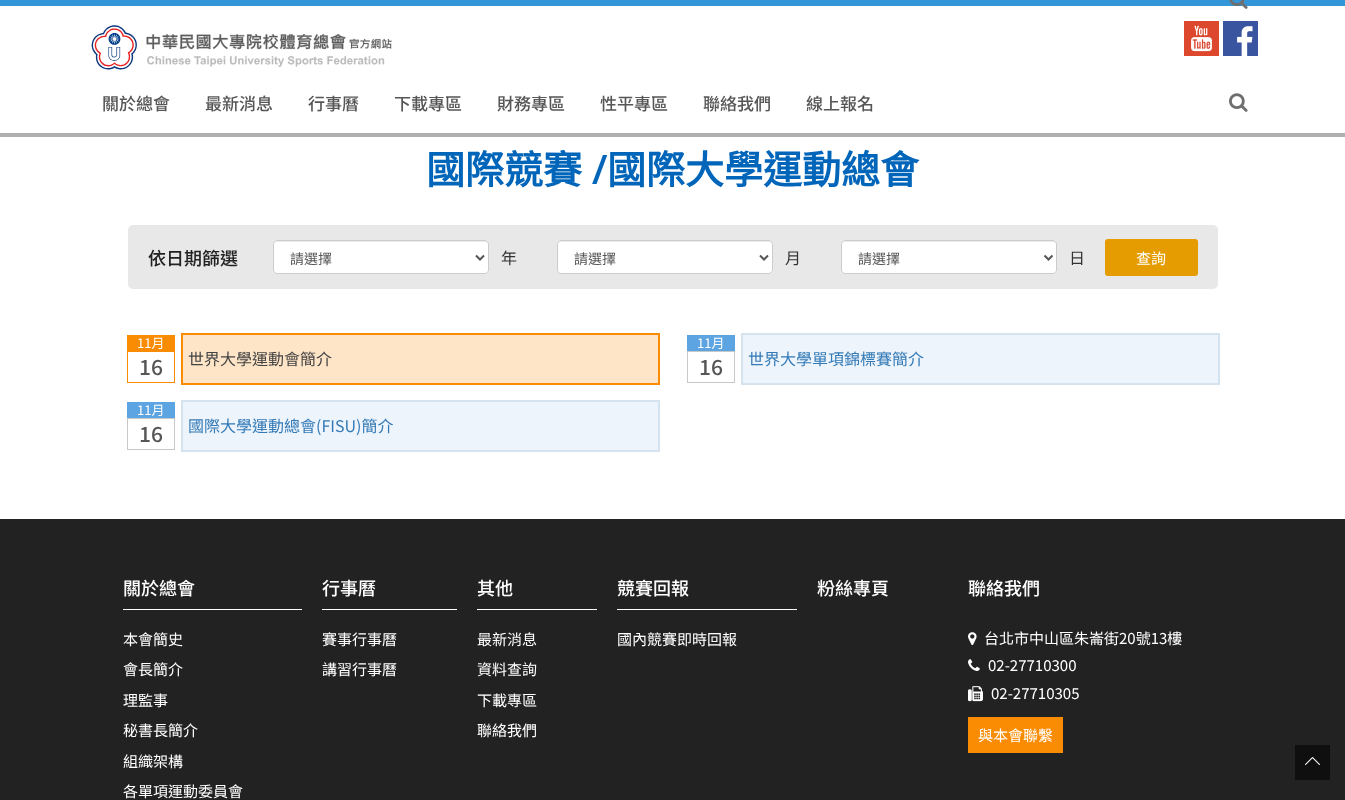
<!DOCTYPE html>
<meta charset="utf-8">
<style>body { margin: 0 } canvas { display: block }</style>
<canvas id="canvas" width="1345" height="800"></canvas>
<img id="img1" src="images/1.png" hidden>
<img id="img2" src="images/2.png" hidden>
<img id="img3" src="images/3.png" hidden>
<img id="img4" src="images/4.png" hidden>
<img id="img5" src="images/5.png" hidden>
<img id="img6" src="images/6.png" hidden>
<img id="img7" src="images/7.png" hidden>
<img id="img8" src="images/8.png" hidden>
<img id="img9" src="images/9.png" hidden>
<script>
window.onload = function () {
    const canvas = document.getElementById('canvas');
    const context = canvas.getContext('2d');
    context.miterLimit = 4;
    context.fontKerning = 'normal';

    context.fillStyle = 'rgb(255, 255, 255)';
    context.fillRect(0, 0, 1345, 800);
    context.fillStyle = 'rgb(51, 150, 217)';
    context.fillRect(0, 0, 1345, 6);
    context.drawImage(document.getElementById('img1'), 1229, 0, 19, 9);
    context.fillStyle = 'rgb(175, 175, 175)';
    context.fillRect(0, 133, 1345, 4);
    context.drawImage(document.getElementById('img2'), 91, 25, 301, 45);
    context.drawImage(document.getElementById('img3'), 1184, 21, 35, 35);
    context.drawImage(document.getElementById('img4'), 1223, 21, 35, 35);
    context.drawImage(document.getElementById('img5'), 1229, 93, 19, 19);
    context.fillStyle = 'rgb(232, 232, 232)';
    context.beginPath();
    context.roundRect(128, 225, 1090, 64, 5);
    context.fill();
    context.fillStyle = 'rgb(255, 255, 255)';
    context.beginPath();
    context.roundRect(273, 240, 216, 34, 4);
    context.fill();
    context.fillStyle = 'rgb(236, 236, 236)';
    context.beginPath();
    context.moveTo(277, 242);
    context.lineTo(485, 242);
    context.bezierCurveTo(487, 242, 488, 243, 488, 245);
    context.lineTo(488, 244);
    context.bezierCurveTo(488, 242, 487, 241, 485, 241);
    context.lineTo(277, 241);
    context.bezierCurveTo(275, 241, 274, 242, 274, 244);
    context.lineTo(274, 245);
    context.bezierCurveTo(274, 243, 275, 242, 277, 242);
    context.closePath();
    context.fill();
    context.beginPath();
    context.roundRect(273.5, 240.5, 215, 33, 3.5);
    context.strokeStyle = 'rgb(204, 204, 204)';
    context.stroke();
    context.beginPath();
    context.moveTo(476, 255.5);
    context.lineTo(480, 259.5);
    context.lineTo(484, 255.5);
    context.strokeStyle = 'rgb(85, 85, 85)';
    context.lineWidth = 2;
    context.stroke();
    context.fillStyle = 'rgb(255, 255, 255)';
    context.beginPath();
    context.roundRect(557, 240, 216, 34, 4);
    context.fill();
    context.fillStyle = 'rgb(236, 236, 236)';
    context.beginPath();
    context.moveTo(561, 242);
    context.lineTo(769, 242);
    context.bezierCurveTo(771, 242, 772, 243, 772, 245);
    context.lineTo(772, 244);
    context.bezierCurveTo(772, 242, 771, 241, 769, 241);
    context.lineTo(561, 241);
    context.bezierCurveTo(559, 241, 558, 242, 558, 244);
    context.lineTo(558, 245);
    context.bezierCurveTo(558, 243, 559, 242, 561, 242);
    context.closePath();
    context.fill();
    context.beginPath();
    context.roundRect(557.5, 240.5, 215, 33, 3.5);
    context.strokeStyle = 'rgb(204, 204, 204)';
    context.lineWidth = 1;
    context.stroke();
    context.beginPath();
    context.moveTo(760, 255.5);
    context.lineTo(764, 259.5);
    context.lineTo(768, 255.5);
    context.strokeStyle = 'rgb(85, 85, 85)';
    context.lineWidth = 2;
    context.stroke();
    context.fillStyle = 'rgb(255, 255, 255)';
    context.beginPath();
    context.roundRect(841, 240, 216, 34, 4);
    context.fill();
    context.fillStyle = 'rgb(236, 236, 236)';
    context.beginPath();
    context.moveTo(845, 242);
    context.lineTo(1053, 242);
    context.bezierCurveTo(1055, 242, 1056, 243, 1056, 245);
    context.lineTo(1056, 244);
    context.bezierCurveTo(1056, 242, 1055, 241, 1053, 241);
    context.lineTo(845, 241);
    context.bezierCurveTo(843, 241, 842, 242, 842, 244);
    context.lineTo(842, 245);
    context.bezierCurveTo(842, 243, 843, 242, 845, 242);
    context.closePath();
    context.fill();
    context.beginPath();
    context.roundRect(841.5, 240.5, 215, 33, 3.5);
    context.strokeStyle = 'rgb(204, 204, 204)';
    context.lineWidth = 1;
    context.stroke();
    context.beginPath();
    context.moveTo(1044.5, 255.5);
    context.lineTo(1048.5, 259.5);
    context.lineTo(1052.5, 255.5);
    context.strokeStyle = 'rgb(85, 85, 85)';
    context.lineWidth = 2;
    context.stroke();
    context.fillStyle = 'rgb(229, 156, 0)';
    context.beginPath();
    context.roundRect(1105, 239, 93, 37, 3);
    context.fill();
    context.fillStyle = 'rgb(250, 140, 4)';
    context.fillRect(127, 335, 48, 16);
    context.strokeStyle = 'rgb(250, 140, 4)';
    context.lineWidth = 1;
    context.strokeRect(127.5, 351.5, 47, 31);
    context.fillStyle = 'rgb(254, 229, 199)';
    context.beginPath();
    context.rect(182, 334, 477, 50);
    context.fill();
    context.lineWidth = 2;
    context.stroke();
    context.fillStyle = 'rgb(92, 165, 226)';
    context.fillRect(687, 335, 48, 16);
    context.strokeStyle = 'rgb(200, 200, 200)';
    context.lineWidth = 1;
    context.strokeRect(687.5, 351.5, 47, 31);
    context.fillStyle = 'rgb(237, 244, 251)';
    context.beginPath();
    context.rect(742, 334, 477, 50);
    context.fill();
    context.strokeStyle = 'rgb(213, 227, 239)';
    context.lineWidth = 2;
    context.stroke();
    context.fillStyle = 'rgb(92, 165, 226)';
    context.fillRect(127, 402, 48, 16);
    context.strokeStyle = 'rgb(200, 200, 200)';
    context.lineWidth = 1;
    context.strokeRect(127.5, 418.5, 47, 31);
    context.fillStyle = 'rgb(237, 244, 251)';
    context.beginPath();
    context.rect(182, 401, 477, 50);
    context.fill();
    context.strokeStyle = 'rgb(213, 227, 239)';
    context.lineWidth = 2;
    context.stroke();
    context.fillStyle = 'rgb(34, 34, 34)';
    context.fillRect(0, 519, 1345, 281);
    context.fillStyle = 'rgb(255, 255, 255)';
    context.fillRect(123, 609, 179, 1);
    context.fillRect(322, 609, 135, 1);
    context.fillRect(477, 609, 120, 1);
    context.fillRect(617, 609, 180, 1);
    context.drawImage(document.getElementById('img6'), 968, 632, 9, 13);
    context.drawImage(document.getElementById('img7'), 968, 659, 12, 12);
    context.drawImage(document.getElementById('img8'), 968, 686, 15, 16);
    context.fillStyle = 'rgb(250, 140, 4)';
    context.fillRect(968, 717, 95, 36);
    context.drawImage(document.getElementById('img9'), 1295, 745, 35, 35);
    context.font = '500 17px Noto Sans TC';
    context.fillStyle = 'rgb(86, 86, 86)';
    context.fillText('關於總會', 102, 110);
    context.fillText('最新消息', 205, 110);
    context.fillText('行事曆', 308, 110);
    context.fillText('下載專區', 394, 110);
    context.fillText('財務專區', 497, 110);
    context.fillText('性平專區', 600, 110);
    context.fillText('聯絡我們', 703, 110);
    context.fillText('線上報名', 806, 110);
    context.font = 'bold 39px Noto Sans CJK TC';
    context.fillStyle = 'rgb(1, 101, 186)';
    context.fillText('國際競賽', 426, 184);
    context.font = 'bold 39px Open Sans';
    context.fillText('/', 592, 184);
    context.font = 'bold 39px Noto Sans CJK TC';
    context.fillText('國際大學運動總會', 607, 184);
    context.font = '500 18px Noto Sans TC';
    context.fillStyle = 'rgb(34, 34, 34)';
    context.fillText('依日期篩選', 148, 265);
    context.font = '14px Noto Sans TC';
    context.fillStyle = 'rgb(86, 86, 86)';
    context.fillText('請選擇', 290, 264);
    context.font = '16px Noto Sans TC';
    context.fillStyle = 'rgb(51, 51, 51)';
    context.fillText('年', 501, 264);
    context.font = '14px Noto Sans TC';
    context.fillStyle = 'rgb(86, 86, 86)';
    context.fillText('請選擇', 574, 264);
    context.font = '16px Noto Sans TC';
    context.fillStyle = 'rgb(51, 51, 51)';
    context.fillText('月', 785, 264);
    context.font = '14px Noto Sans TC';
    context.fillStyle = 'rgb(86, 86, 86)';
    context.fillText('請選擇', 858, 264);
    context.font = '16px Noto Sans TC';
    context.fillStyle = 'rgb(51, 51, 51)';
    context.fillText('日', 1069, 264);
    context.font = '15px Noto Sans TC';
    context.fillStyle = 'rgb(255, 255, 255)';
    context.fillText('查詢', 1136, 264);
    context.font = '13px Noto Sans TC';
    context.fillText('11月', 137, 348);
    context.font = '500 21px Noto Sans TC';
    context.fillStyle = 'rgb(86, 86, 86)';
    context.fillText('16', 139, 375);
    context.font = '16px Noto Sans TC';
    context.fillStyle = 'rgb(68, 68, 68)';
    context.fillText('世界大學運動會簡介', 188, 365);
    context.font = '13px Noto Sans TC';
    context.fillStyle = 'rgb(255, 255, 255)';
    context.fillText('11月', 697, 348);
    context.font = '500 21px Noto Sans TC';
    context.fillStyle = 'rgb(86, 86, 86)';
    context.fillText('16', 699, 375);
    context.font = '16px Noto Sans TC';
    context.fillStyle = 'rgb(51, 122, 183)';
    context.fillText('世界大學單項錦標賽簡介', 748, 365);
    context.font = '13px Noto Sans TC';
    context.fillStyle = 'rgb(255, 255, 255)';
    context.fillText('11月', 137, 415);
    context.font = '500 21px Noto Sans TC';
    context.fillStyle = 'rgb(86, 86, 86)';
    context.fillText('16', 139, 442);
    context.font = '16px Noto Sans TC';
    context.fillStyle = 'rgb(51, 122, 183)';
    context.fillText('國際大學運動總會(FISU)簡介', 188, 432);
    context.font = '500 18px Noto Sans TC';
    context.fillStyle = 'rgb(255, 255, 255)';
    context.fillText('關於總會', 123, 595);
    context.font = '15px Noto Sans TC';
    context.fillText('本會簡史', 123, 645);
    context.fillText('會長簡介', 123, 675);
    context.fillText('理監事', 123, 706);
    context.fillText('秘書長簡介', 123, 736);
    context.fillText('組織架構', 123, 767);
    context.fillText('各單項運動委員會', 123, 797);
    context.font = '500 18px Noto Sans TC';
    context.fillText('行事曆', 322, 595);
    context.font = '15px Noto Sans TC';
    context.fillText('賽事行事曆', 322, 645);
    context.fillText('講習行事曆', 322, 675);
    context.font = '500 18px Noto Sans TC';
    context.fillText('其他', 477, 595);
    context.font = '15px Noto Sans TC';
    context.fillText('最新消息', 477, 645);
    context.fillText('資料查詢', 477, 675);
    context.fillText('下載專區', 477, 706);
    context.fillText('聯絡我們', 477, 736);
    context.font = '500 18px Noto Sans TC';
    context.fillText('競賽回報', 617, 595);
    context.font = '15px Noto Sans TC';
    context.fillText('國內競賽即時回報', 617, 645);
    context.font = '500 18px Noto Sans TC';
    context.fillText('粉絲專頁', 817, 595);
    context.fillText('聯絡我們', 968, 595);
    context.font = '15px Noto Sans TC';
    context.fillText('台北市中山區朱崙街20號13樓', 984, 644);
    context.fillText('02-27710300', 988, 671);
    context.fillText('02-27710305', 991, 699);
    context.fillText('與本會聯繫', 978, 741);
};
</script>
